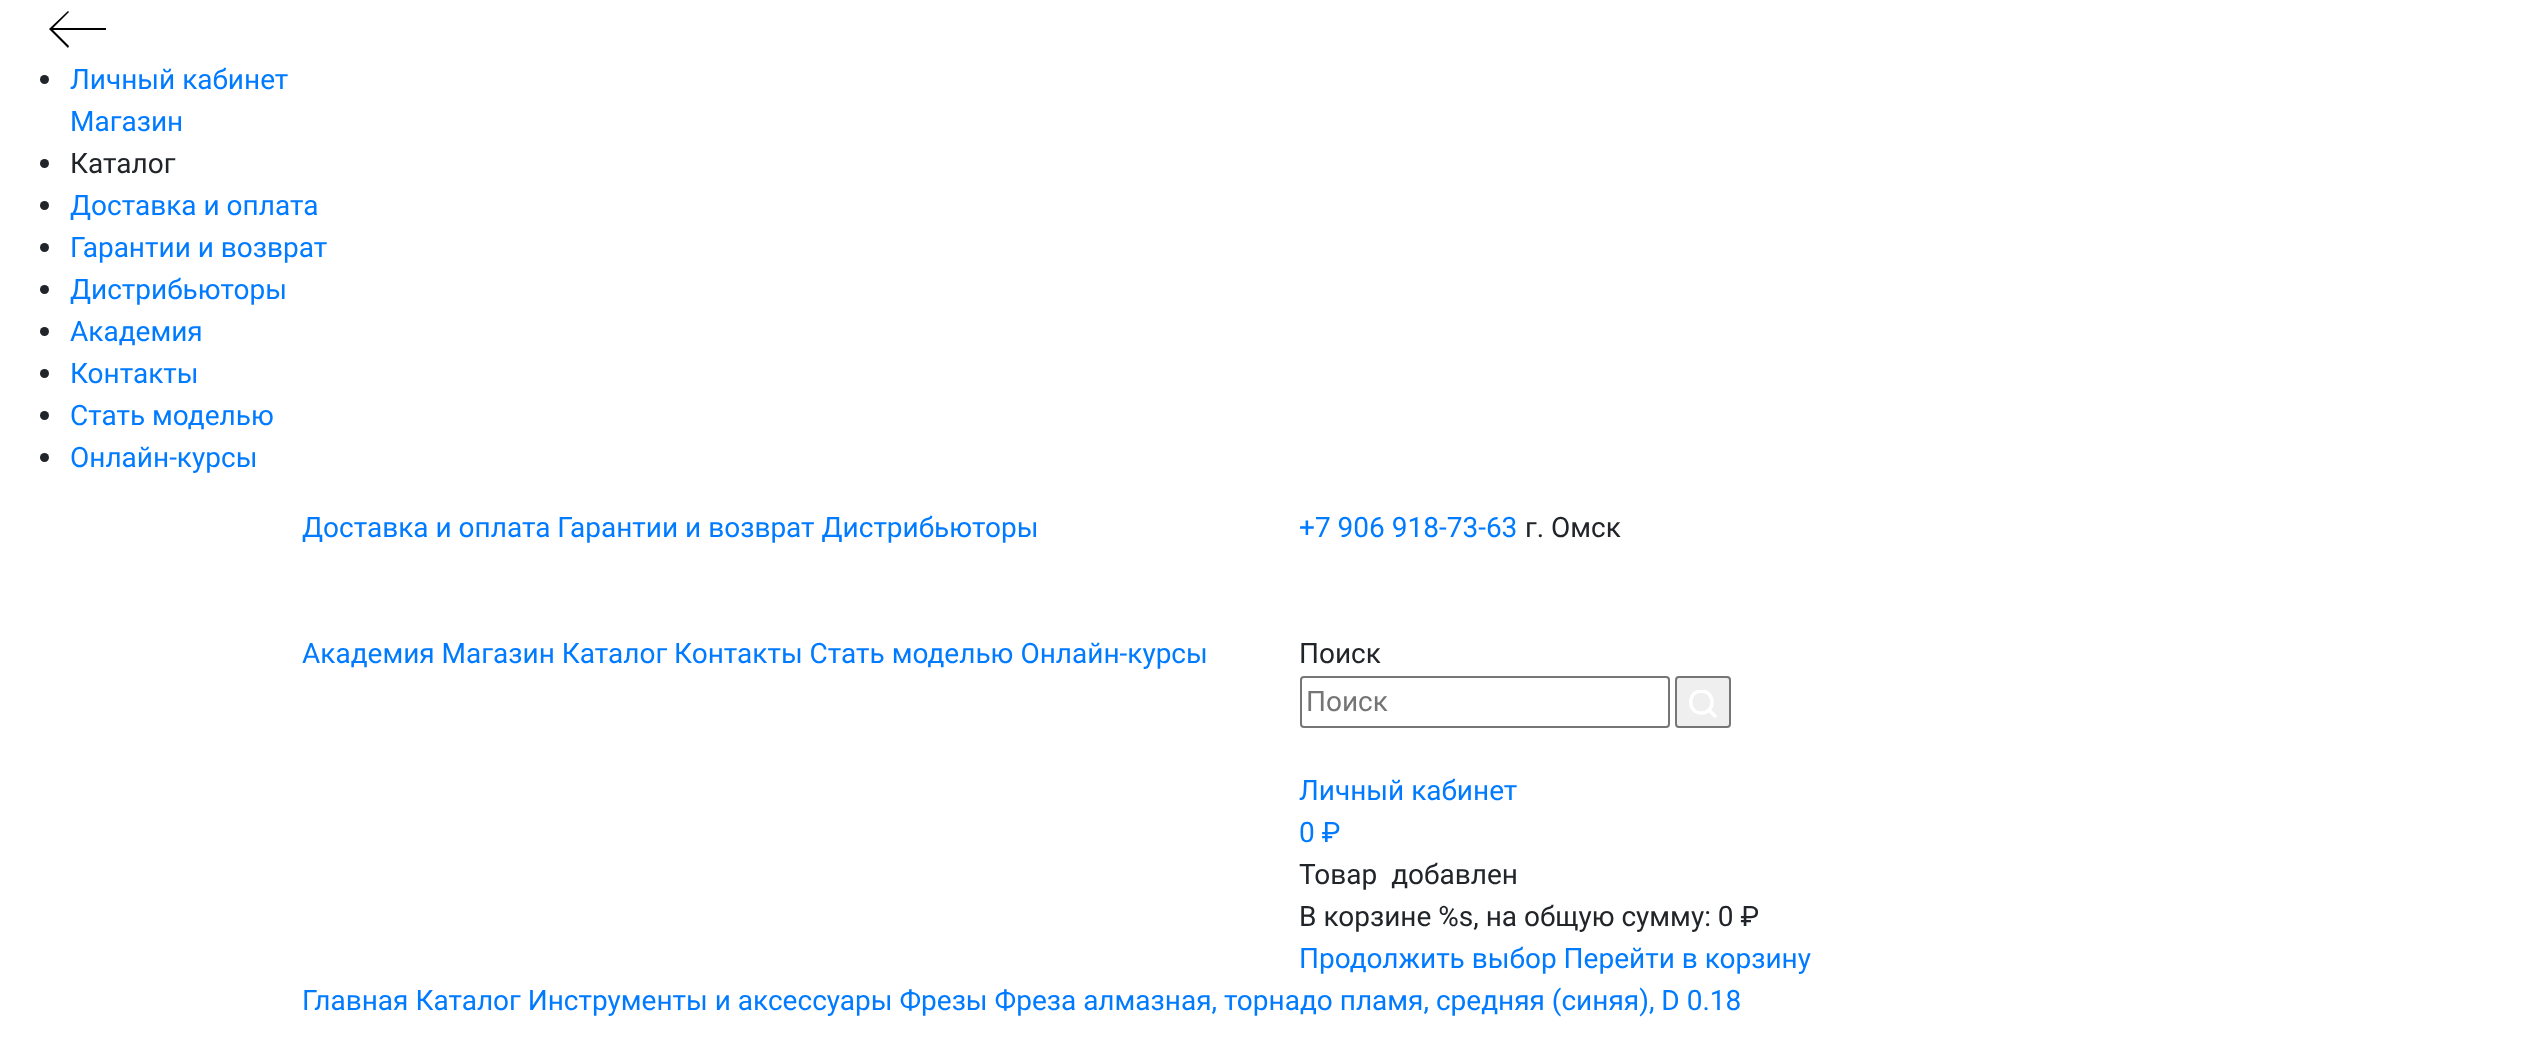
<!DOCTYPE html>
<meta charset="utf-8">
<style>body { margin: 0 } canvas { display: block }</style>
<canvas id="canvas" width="2546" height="1061"></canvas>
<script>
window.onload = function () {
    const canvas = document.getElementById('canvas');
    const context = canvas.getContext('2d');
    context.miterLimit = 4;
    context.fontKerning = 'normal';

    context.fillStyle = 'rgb(255, 255, 255)';
    context.fillRect(0, 0, 2546, 1061);
    context.fillStyle = 'rgb(0, 0, 0)';
    context.beginPath();
    context.moveTo(53, 28);
    context.lineTo(69, 12);
    context.lineTo(68, 11);
    context.lineTo(49, 29);
    context.lineTo(68, 48);
    context.lineTo(69, 46);
    context.lineTo(53, 30);
    context.lineTo(106, 30);
    context.lineTo(106, 28);
    context.closePath();
    context.fill();
    context.fillStyle = 'rgb(33, 37, 41)';
    context.beginPath();
    context.arc(44.5, 79.5, 4.5, 0, 2 * Math.PI);
    context.fill();
    context.beginPath();
    context.arc(44.5, 163.5, 4.5, 0, 2 * Math.PI);
    context.fill();
    context.beginPath();
    context.arc(44.5, 205.5, 4.5, 0, 2 * Math.PI);
    context.fill();
    context.beginPath();
    context.arc(44.5, 247.5, 4.5, 0, 2 * Math.PI);
    context.fill();
    context.beginPath();
    context.arc(44.5, 289.5, 4.5, 0, 2 * Math.PI);
    context.fill();
    context.beginPath();
    context.arc(44.5, 331.5, 4.5, 0, 2 * Math.PI);
    context.fill();
    context.beginPath();
    context.arc(44.5, 373.5, 4.5, 0, 2 * Math.PI);
    context.fill();
    context.beginPath();
    context.arc(44.5, 415.5, 4.5, 0, 2 * Math.PI);
    context.fill();
    context.beginPath();
    context.arc(44.5, 457.5, 4.5, 0, 2 * Math.PI);
    context.fill();
    context.beginPath();
    context.roundRect(1301, 677, 368, 50, 3);
    context.strokeStyle = 'rgb(118, 118, 118)';
    context.lineWidth = 2;
    context.stroke();
    context.fillStyle = 'rgb(239, 239, 239)';
    context.beginPath();
    context.roundRect(1676, 677, 54, 50, 3);
    context.fill();
    context.stroke();
    context.save();
    context.beginPath();
    context.rect(1689, 690, 28, 28);
    context.clip();
    context.beginPath();
    context.moveTo(1701.5, 713);
    context.bezierCurveTo(1715.5, 713, 1715.5, 691.5, 1701.5, 691);
    context.bezierCurveTo(1687, 691, 1687, 713, 1701.5, 713);
    context.closePath();
    context.strokeStyle = 'rgb(255, 255, 255)';
    context.lineWidth = 3.5;
    context.lineJoin = 'round';
    context.stroke();
    context.restore();
    context.beginPath();
    context.moveTo(1715, 716);
    context.lineTo(1709, 710);
    context.strokeStyle = 'rgb(255, 255, 255)';
    context.lineWidth = 3.5;
    context.lineCap = 'round';
    context.lineJoin = 'round';
    context.stroke();
    context.font = '28px Roboto';
    context.fillStyle = 'rgb(0, 123, 255)';
    context.fillText('Личный кабинет', 70, 89);
    context.fillText('Магазин', 70, 131);
    context.fillStyle = 'rgb(33, 37, 41)';
    context.fillText('Каталог', 70, 173);
    context.fillStyle = 'rgb(0, 123, 255)';
    context.fillText('Доставка и оплата', 70, 215);
    context.fillText('Гарантии и возврат', 70, 257);
    context.fillText('Дистрибьюторы', 70, 299);
    context.fillText('Академия', 70, 341);
    context.fillText('Контакты', 70, 383);
    context.fillText('Стать моделью', 70, 425);
    context.fillText('Онлайн-курсы', 70, 467);
    context.fillText('Доставка и оплата Гарантии и возврат Дистрибьюторы', 302, 537);
    context.fillText('+7 906 918-73-63', 1299, 537);
    context.fillStyle = 'rgb(33, 37, 41)';
    context.fillText('г. Омск', 1525, 537);
    context.fillStyle = 'rgb(0, 123, 255)';
    context.fillText('Академия Магазин Каталог Контакты Стать моделью Онлайн-курсы', 302, 663);
    context.fillStyle = 'rgb(33, 37, 41)';
    context.fillText('Поиск', 1299, 663);
    context.fillStyle = 'rgb(117, 117, 117)';
    context.fillText('Поиск', 1306, 711);
    context.fillStyle = 'rgb(0, 123, 255)';
    context.fillText('Личный кабинет', 1299, 800);
    context.fillText('0 ₽', 1299, 842);
    context.fillStyle = 'rgb(33, 37, 41)';
    context.fillText('Товар  добавлен', 1299, 884);
    context.fillText('В корзине %s, на общую сумму: 0 ₽', 1299, 926);
    context.fillStyle = 'rgb(0, 123, 255)';
    context.fillText('Продолжить выбор Перейти в корзину', 1299, 968);
    context.fillText('Главная Каталог Инструменты и аксессуары Фрезы Фреза алмазная, торнадо пламя, средняя (синяя), D 0.18', 302, 1010);
};
</script>
